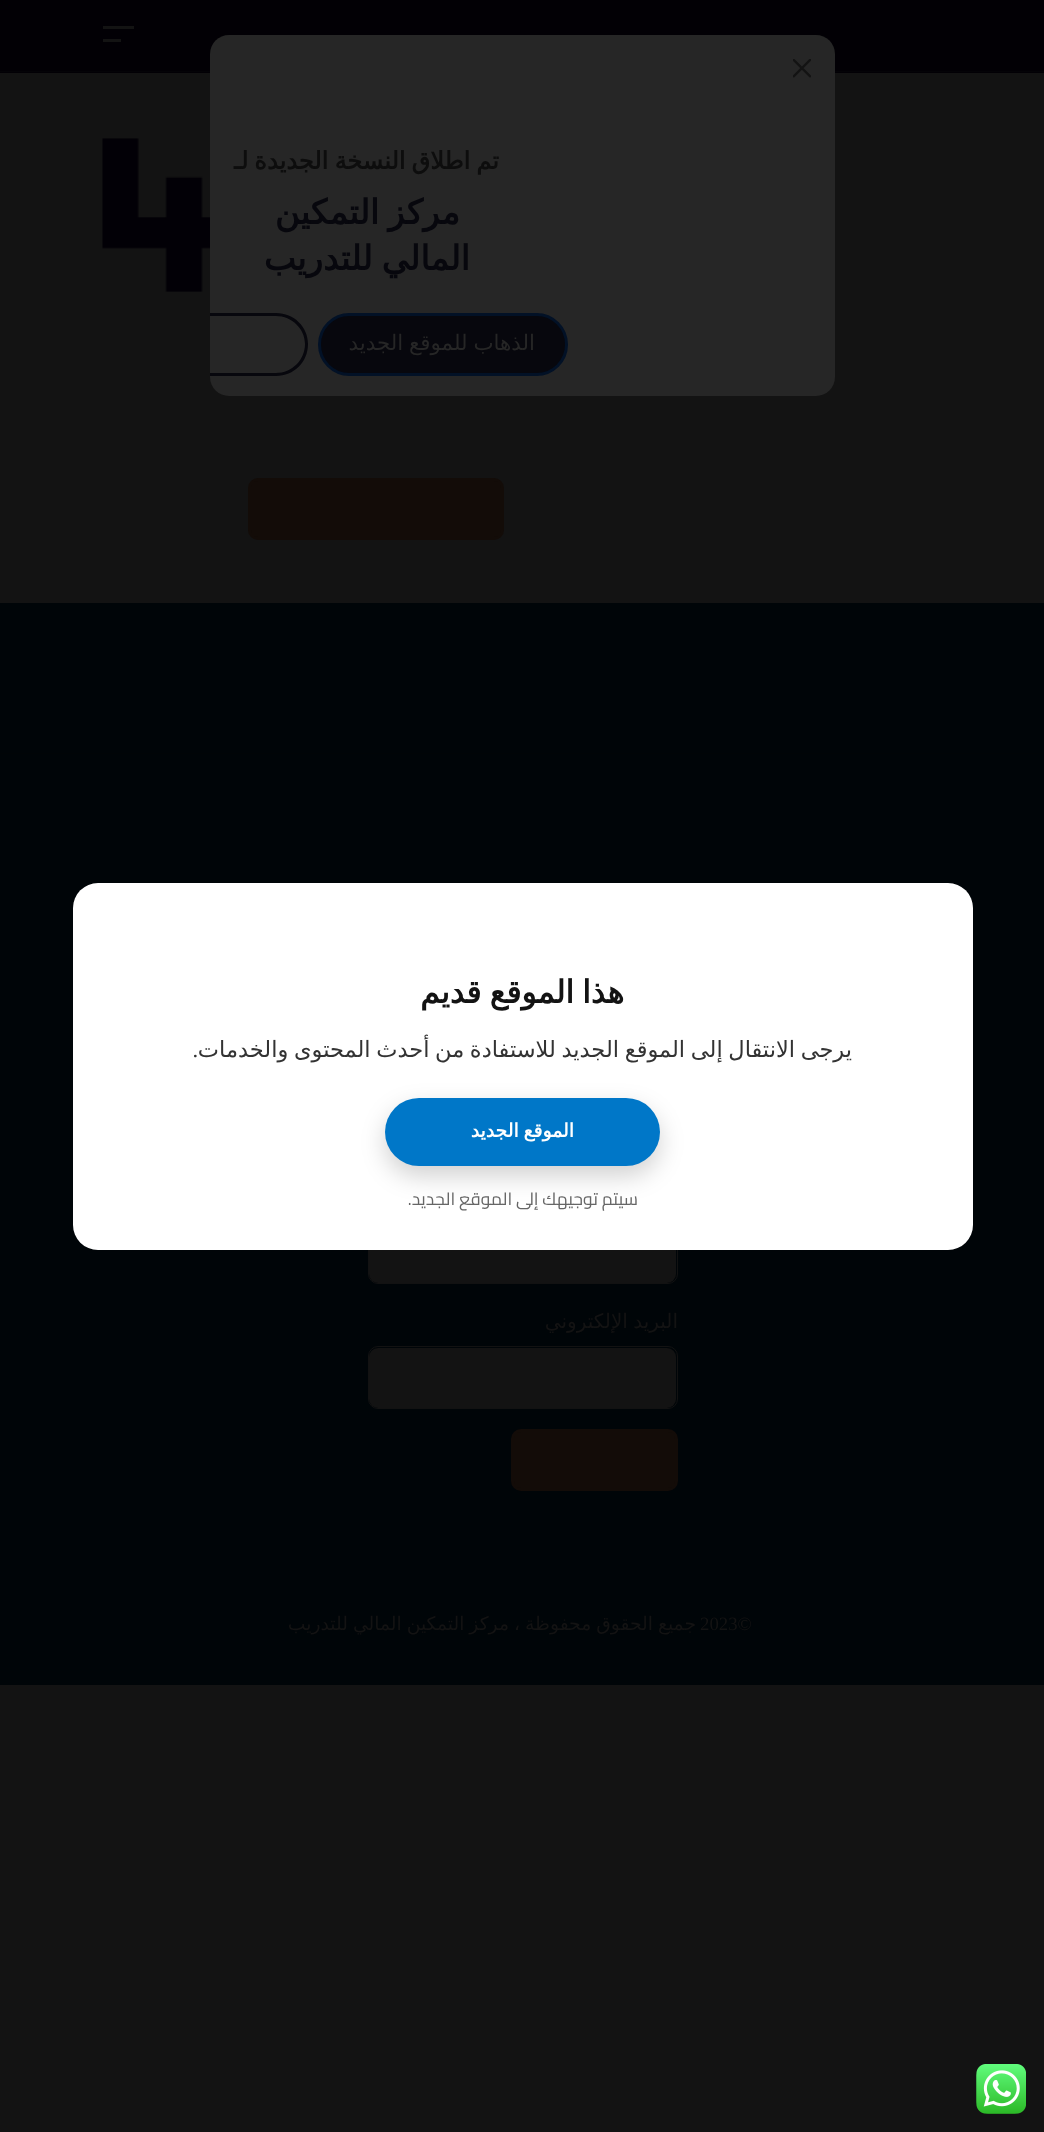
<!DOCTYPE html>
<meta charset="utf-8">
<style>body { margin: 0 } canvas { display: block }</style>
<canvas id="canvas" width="1044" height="2132"></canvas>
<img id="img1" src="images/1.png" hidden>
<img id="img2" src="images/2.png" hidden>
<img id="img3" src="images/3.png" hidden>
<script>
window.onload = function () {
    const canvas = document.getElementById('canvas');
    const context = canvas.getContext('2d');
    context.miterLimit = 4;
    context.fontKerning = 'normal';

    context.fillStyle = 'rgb(19, 19, 19)';
    context.fillRect(0, 0, 1044, 2132);
    context.fillStyle = 'rgb(2, 0, 5)';
    context.fillRect(0, 0, 1044, 73);
    context.fillStyle = 'rgb(4, 3, 7)';
    context.fillRect(0, 71, 1044, 1);
    context.fillStyle = 'rgb(38, 38, 38)';
    context.beginPath();
    context.roundRect(210, 35, 625, 361, 19);
    context.fill();
    context.drawImage(document.getElementById('img1'), 793, 59, 18, 19);
    context.fillStyle = 'rgb(7, 7, 13)';
    context.beginPath();
    context.roundRect(319.5, 314.5, 247, 60, 30);
    context.fill();
    context.strokeStyle = 'rgb(2, 17, 38)';
    context.lineWidth = 3;
    context.stroke();
    context.beginPath();
    context.moveTo(210, 376);
    context.lineTo(276, 376);
    context.bezierCurveTo(294, 376, 308, 362, 308, 344);
    context.bezierCurveTo(308, 327, 294, 313, 276, 313);
    context.lineTo(210, 313);
    context.lineTo(210, 316);
    context.lineTo(276, 316);
    context.bezierCurveTo(292, 316, 305, 329, 305, 344);
    context.bezierCurveTo(305, 360, 292, 373, 276, 373);
    context.lineTo(210, 373);
    context.closePath();
    context.fill();
    context.fillStyle = 'rgb(0, 5, 8)';
    context.fillRect(0, 754, 1044, 931);
    context.fillStyle = 'rgb(19, 19, 19)';
    context.beginPath();
    context.roundRect(369, 1223, 307, 60, 9);
    context.fill();
    context.beginPath();
    context.roundRect(368.5, 1221.5, 309, 62, 9.5);
    context.strokeStyle = 'rgb(18, 18, 18)';
    context.lineWidth = 1;
    context.stroke();
    context.fillStyle = 'rgb(255, 255, 255)';
    context.beginPath();
    context.roundRect(73, 883, 900, 367, 25);
    context.fill();
    context.fillStyle = 'rgba(0, 0, 0, 0.18)';
    context.filter = 'blur(12.5px)';
    context.beginPath();
    context.roundRect(385, 1108, 275, 68, 34);
    context.fill();
    context.filter = 'none';
    context.fillStyle = 'rgb(0, 119, 200)';
    context.beginPath();
    context.roundRect(385, 1098, 275, 68, 34);
    context.fill();
    context.fillStyle = 'rgb(19, 19, 19)';
    context.fillRect(103, 26, 31, 3);
    context.fillRect(103, 39, 18, 3);
    context.drawImage(document.getElementById('img2'), 102, 138, 108, 154);
    context.fillStyle = 'rgb(19, 12, 8)';
    context.beginPath();
    context.roundRect(249.5, 479.5, 253, 59, 8.5);
    context.fill();
    context.strokeStyle = 'rgb(19, 12, 8)';
    context.lineWidth = 3;
    context.stroke();
    context.fillStyle = 'rgb(0, 5, 8)';
    context.fillRect(0, 603, 1044, 150);
    context.fillStyle = 'rgb(1, 5, 7)';
    context.fillRect(0, 753, 1044, 1);
    context.fillStyle = 'rgb(19, 19, 19)';
    context.beginPath();
    context.roundRect(369, 1348, 307, 60, 9);
    context.fill();
    context.beginPath();
    context.roundRect(368.5, 1346.5, 309, 62, 9.5);
    context.strokeStyle = 'rgb(18, 18, 18)';
    context.lineWidth = 1;
    context.stroke();
    context.fillStyle = 'rgb(19, 12, 8)';
    context.beginPath();
    context.roundRect(512.5, 1430.5, 164, 59, 8.5);
    context.fill();
    context.strokeStyle = 'rgb(19, 12, 8)';
    context.lineWidth = 3;
    context.stroke();
    context.drawImage(document.getElementById('img3'), 976, 2064, 50, 50);
    context.wordSpacing = '-1.5px';
    context.direction = 'rtl';
    context.font = 'bold 24px DejaVu Sans';
    context.fillStyle = 'rgb(13, 13, 13)';
    context.fillText('تم اطلاق النسخة الجديدة لـ', 499, 169);
    context.wordSpacing = '-2px';
    context.font = 'bold 34px DejaVu Sans';
    context.fillStyle = 'rgb(7, 7, 13)';
    context.fillText('مركز التمكين', 460, 224);
    context.fillText('المالي للتدريب', 470, 270);
    context.wordSpacing = '-1px';
    context.font = '21.4px DejaVu Sans';
    context.fillStyle = 'rgb(38, 38, 38)';
    context.fillText('الذهاب للموقع الجديد', 535, 350);
    context.wordSpacing = '-2px';
    context.font = 'bold 31.5px DejaVu Sans';
    context.fillStyle = 'rgb(19, 19, 19)';
    context.fillText('هذا الموقع قديم', 624, 1003);
    context.wordSpacing = '-1.5px';
    context.font = '22.5px DejaVu Sans';
    context.fillStyle = 'rgb(51, 51, 51)';
    context.fillText('يرجى الانتقال إلى الموقع الجديد للاستفادة من أحدث المحتوى والخدمات', 852, 1057);
    context.wordSpacing = '0px';
    context.font = '22.5px Liberation Serif';
    context.fillText('.', 198, 1057);
    context.wordSpacing = '-1px';
    context.font = 'bold 18.75px DejaVu Sans';
    context.fillStyle = 'rgb(255, 255, 255)';
    context.fillText('الموقع الجديد', 574, 1137);
    context.wordSpacing = '0px';
    context.font = '17.5px Cairo';
    context.fillStyle = 'rgb(102, 102, 102)';
    context.fillText('سيتم توجيهك إلى الموقع الجديد.', 638, 1205);
    context.wordSpacing = '-1px';
    context.font = '20px DejaVu Sans';
    context.fillStyle = 'rgb(19, 19, 19)';
    context.fillText('البريد الإلكتروني', 678, 1328);
    context.wordSpacing = '0px';
    context.direction = 'ltr';
    context.font = '18.75px Liberation Serif';
    context.fillText('2023©', 700, 1630);
    context.wordSpacing = '-1px';
    context.direction = 'rtl';
    context.font = '18.75px DejaVu Sans';
    context.fillText('جميع الحقوق محفوظة ، مركز التمكين المالي للتدريب', 696, 1630);
};
</script>
